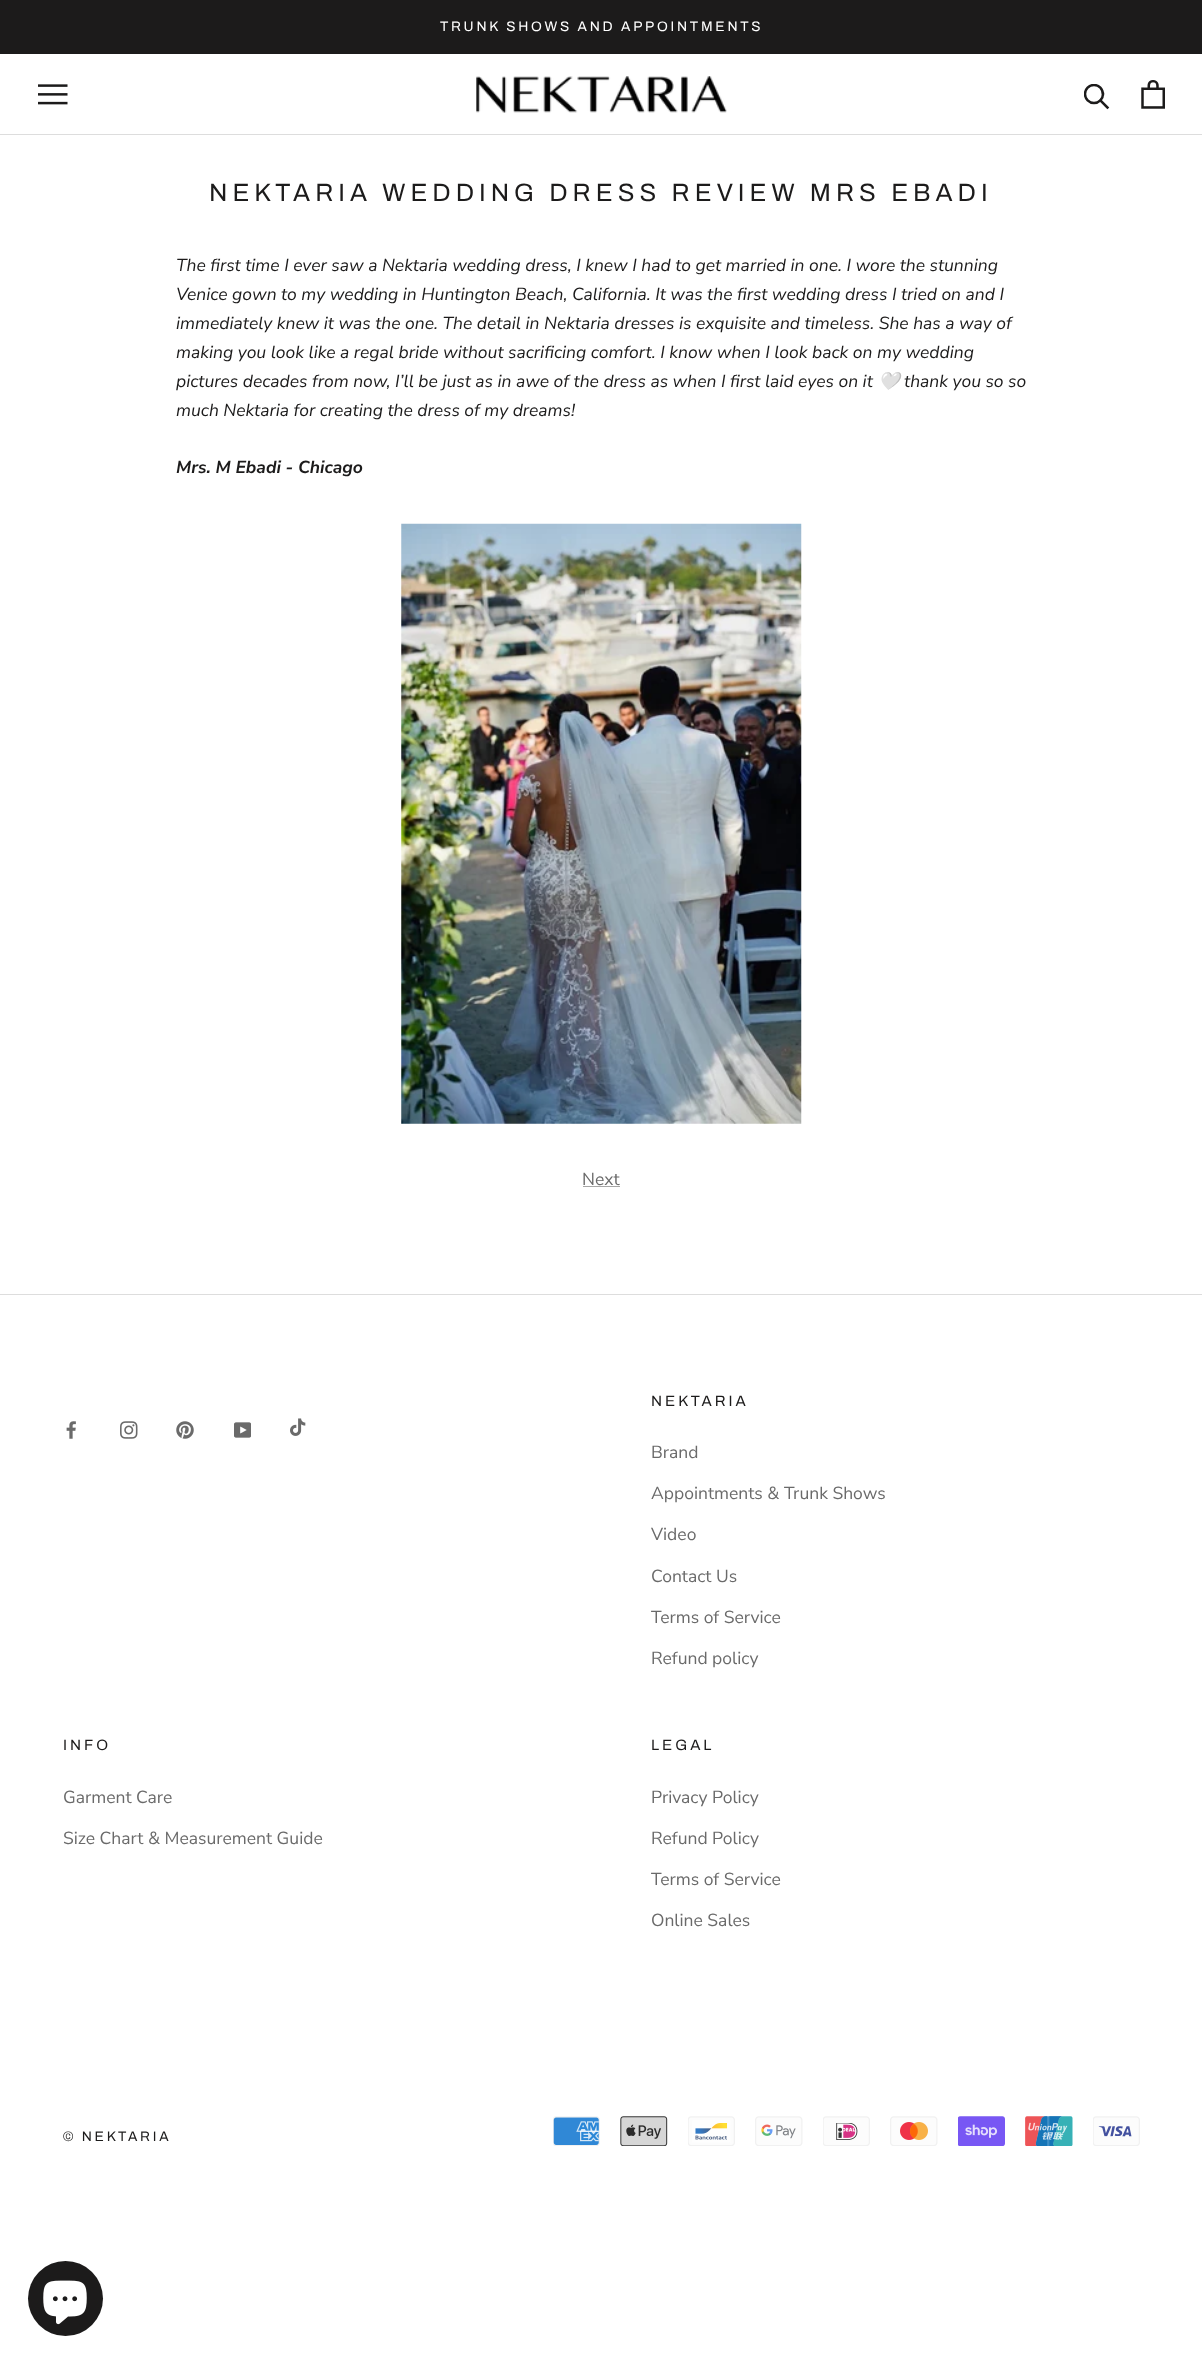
<!DOCTYPE html>
<meta charset="utf-8">
<style>body { margin: 0 } canvas { display: block }</style>
<canvas id="canvas" width="1202" height="2362"></canvas>
<img id="img1" src="images/1.png" hidden>
<img id="img2" src="images/2.png" hidden>
<img id="img3" src="images/3.png" hidden>
<img id="img4" src="images/4.png" hidden>
<img id="img5" src="images/5.png" hidden>
<img id="img6" src="images/6.png" hidden>
<img id="img7" src="images/7.png" hidden>
<img id="img8" src="images/8.png" hidden>
<img id="img9" src="images/9.png" hidden>
<img id="img10" src="images/10.png" hidden>
<img id="img11" src="images/11.png" hidden>
<img id="img12" src="images/12.png" hidden>
<img id="img13" src="images/13.png" hidden>
<img id="img14" src="images/14.png" hidden>
<img id="img15" src="images/15.png" hidden>
<img id="img16" src="images/16.png" hidden>
<img id="img17" src="images/17.png" hidden>
<img id="img18" src="images/18.png" hidden>
<img id="img19" src="images/19.png" hidden>
<script>
window.onload = function () {
    const canvas = document.getElementById('canvas');
    const context = canvas.getContext('2d');
    context.miterLimit = 4;
    context.fontKerning = 'normal';

    context.fillStyle = 'rgb(255, 255, 255)';
    context.fillRect(0, 0, 1202, 2362);
    context.fillStyle = 'rgb(28, 27, 27)';
    context.fillRect(0, 0, 1202, 54);
    context.fillStyle = 'rgb(221, 221, 221)';
    context.fillRect(0, 134, 1202, 1);
    context.drawImage(document.getElementById('img1'), 38, 84, 30, 21);
    context.drawImage(document.getElementById('img2'), 476, 76, 251, 37);
    context.beginPath();
    context.moveTo(1107.5, 107.5);
    context.lineTo(1100.5, 100.5);
    context.strokeStyle = 'rgb(28, 27, 27)';
    context.lineWidth = 2.5;
    context.lineCap = 'square';
    context.stroke();
    context.save();
    context.beginPath();
    context.rect(1084, 84, 26, 26);
    context.clip();
    context.beginPath();
    context.arc(1094, 94, 9, 0, 2 * Math.PI);
    context.stroke();
    context.restore();
    context.drawImage(document.getElementById('img3'), 1141, 80, 24, 29);
    context.drawImage(document.getElementById('img4'), 401, 523, 401, 601);
    context.fillStyle = 'rgb(166, 166, 166)';
    context.fillRect(583, 1186, 37, 1);
    context.fillStyle = 'rgb(221, 221, 221)';
    context.fillRect(0, 1294, 1202, 1);
    context.drawImage(document.getElementById('img5'), 66, 1421, 10, 18);
    context.drawImage(document.getElementById('img6'), 120, 1421, 18, 18);
    context.drawImage(document.getElementById('img7'), 176, 1421, 18, 18);
    context.drawImage(document.getElementById('img8'), 234, 1422, 17, 16);
    context.drawImage(document.getElementById('img9'), 290, 1418, 16, 18);
    context.drawImage(document.getElementById('img10'), 553, 2116, 47, 30);
    context.drawImage(document.getElementById('img11'), 620, 2116, 48, 30);
    context.drawImage(document.getElementById('img12'), 688, 2116, 47, 30);
    context.drawImage(document.getElementById('img13'), 755, 2116, 48, 30);
    context.drawImage(document.getElementById('img14'), 823, 2116, 47, 30);
    context.drawImage(document.getElementById('img15'), 890, 2116, 48, 30);
    context.drawImage(document.getElementById('img16'), 958, 2116, 47, 30);
    context.drawImage(document.getElementById('img17'), 1025, 2116, 48, 30);
    context.drawImage(document.getElementById('img18'), 1093, 2116, 47, 30);
    context.fillStyle = 'rgb(28, 27, 27)';
    context.beginPath();
    context.arc(65.5, 2298.5, 37.5, 0, 2 * Math.PI);
    context.fill();
    context.drawImage(document.getElementById('img19'), 43, 2280, 44, 45);
    context.letterSpacing = '2.75px';
    context.font = '13.75px Archivo';
    context.fillStyle = 'rgb(255, 255, 255)';
    context.fillText('TRUNK SHOWS AND APPOINTMENTS', 440, 31);
    context.letterSpacing = '5px';
    context.font = '25px Archivo';
    context.fillStyle = 'rgb(28, 27, 27)';
    context.fillText('NEKTARIA WEDDING DRESS REVIEW MRS EBADI', 209, 201);
    context.letterSpacing = '0px';
    context.font = 'italic 17.5px Nunito Sans';
    context.fillText('The first time I ever saw a Nektaria wedding dress, I knew I had to get married in one. I wore the stunning', 176, 271);
    context.fillText('Venice gown to my wedding in Huntington Beach, California. It was the first wedding dress I tried on and I', 176, 300);
    context.fillText('immediately knew it was the one. The detail in Nektaria dresses is exquisite and timeless. She has a way of', 176, 329);
    context.fillText('making you look like a regal bride without sacrificing comfort. I know when I look back on my wedding', 176, 358);
    context.fillText('pictures decades from now, I’ll be just as in awe of the dress as when I first laid eyes on it', 176, 387);
    context.font = 'italic 17.5px Noto Color Emoji';
    context.fillText('🤍', 878, 387);
    context.font = 'italic 17.5px Nunito Sans';
    context.fillText('thank you so so', 904, 387);
    context.fillText('much Nektaria for creating the dress of my dreams!', 176, 416);
    context.font = 'italic bold 17.5px Nunito Sans';
    context.fillText('Mrs. M Ebadi - Chicago', 176, 473);
    context.font = '17.5px Nunito Sans';
    context.fillStyle = 'rgb(106, 106, 106)';
    context.fillText('Next', 582, 1185);
    context.letterSpacing = '3px';
    context.font = '15px Archivo';
    context.fillStyle = 'rgb(28, 27, 27)';
    context.fillText('NEKTARIA', 651, 1406);
    context.letterSpacing = '0px';
    context.font = '17.5px Nunito Sans';
    context.fillStyle = 'rgb(106, 106, 106)';
    context.fillText('Brand', 651, 1458);
    context.fillText('Appointments & Trunk Shows', 651, 1499);
    context.fillText('Video', 651, 1540);
    context.fillText('Contact Us', 651, 1582);
    context.fillText('Terms of Service', 651, 1623);
    context.fillText('Refund policy', 651, 1664);
    context.letterSpacing = '3px';
    context.font = '15px Archivo';
    context.fillStyle = 'rgb(28, 27, 27)';
    context.fillText('INFO', 63, 1750);
    context.letterSpacing = '0px';
    context.font = '17.5px Nunito Sans';
    context.fillStyle = 'rgb(106, 106, 106)';
    context.fillText('Garment Care', 63, 1803);
    context.fillText('Size Chart & Measurement Guide', 63, 1844);
    context.letterSpacing = '3px';
    context.font = '15px Archivo';
    context.fillStyle = 'rgb(28, 27, 27)';
    context.fillText('LEGAL', 651, 1750);
    context.letterSpacing = '0px';
    context.font = '17.5px Nunito Sans';
    context.fillStyle = 'rgb(106, 106, 106)';
    context.fillText('Privacy Policy', 651, 1803);
    context.fillText('Refund Policy', 651, 1844);
    context.fillText('Terms of Service', 651, 1885);
    context.fillText('Online Sales', 651, 1926);
    context.letterSpacing = '2.75px';
    context.font = '13.75px Archivo';
    context.fillStyle = 'rgb(28, 27, 27)';
    context.fillText('© NEKTARIA', 63, 2141);
};
</script>
